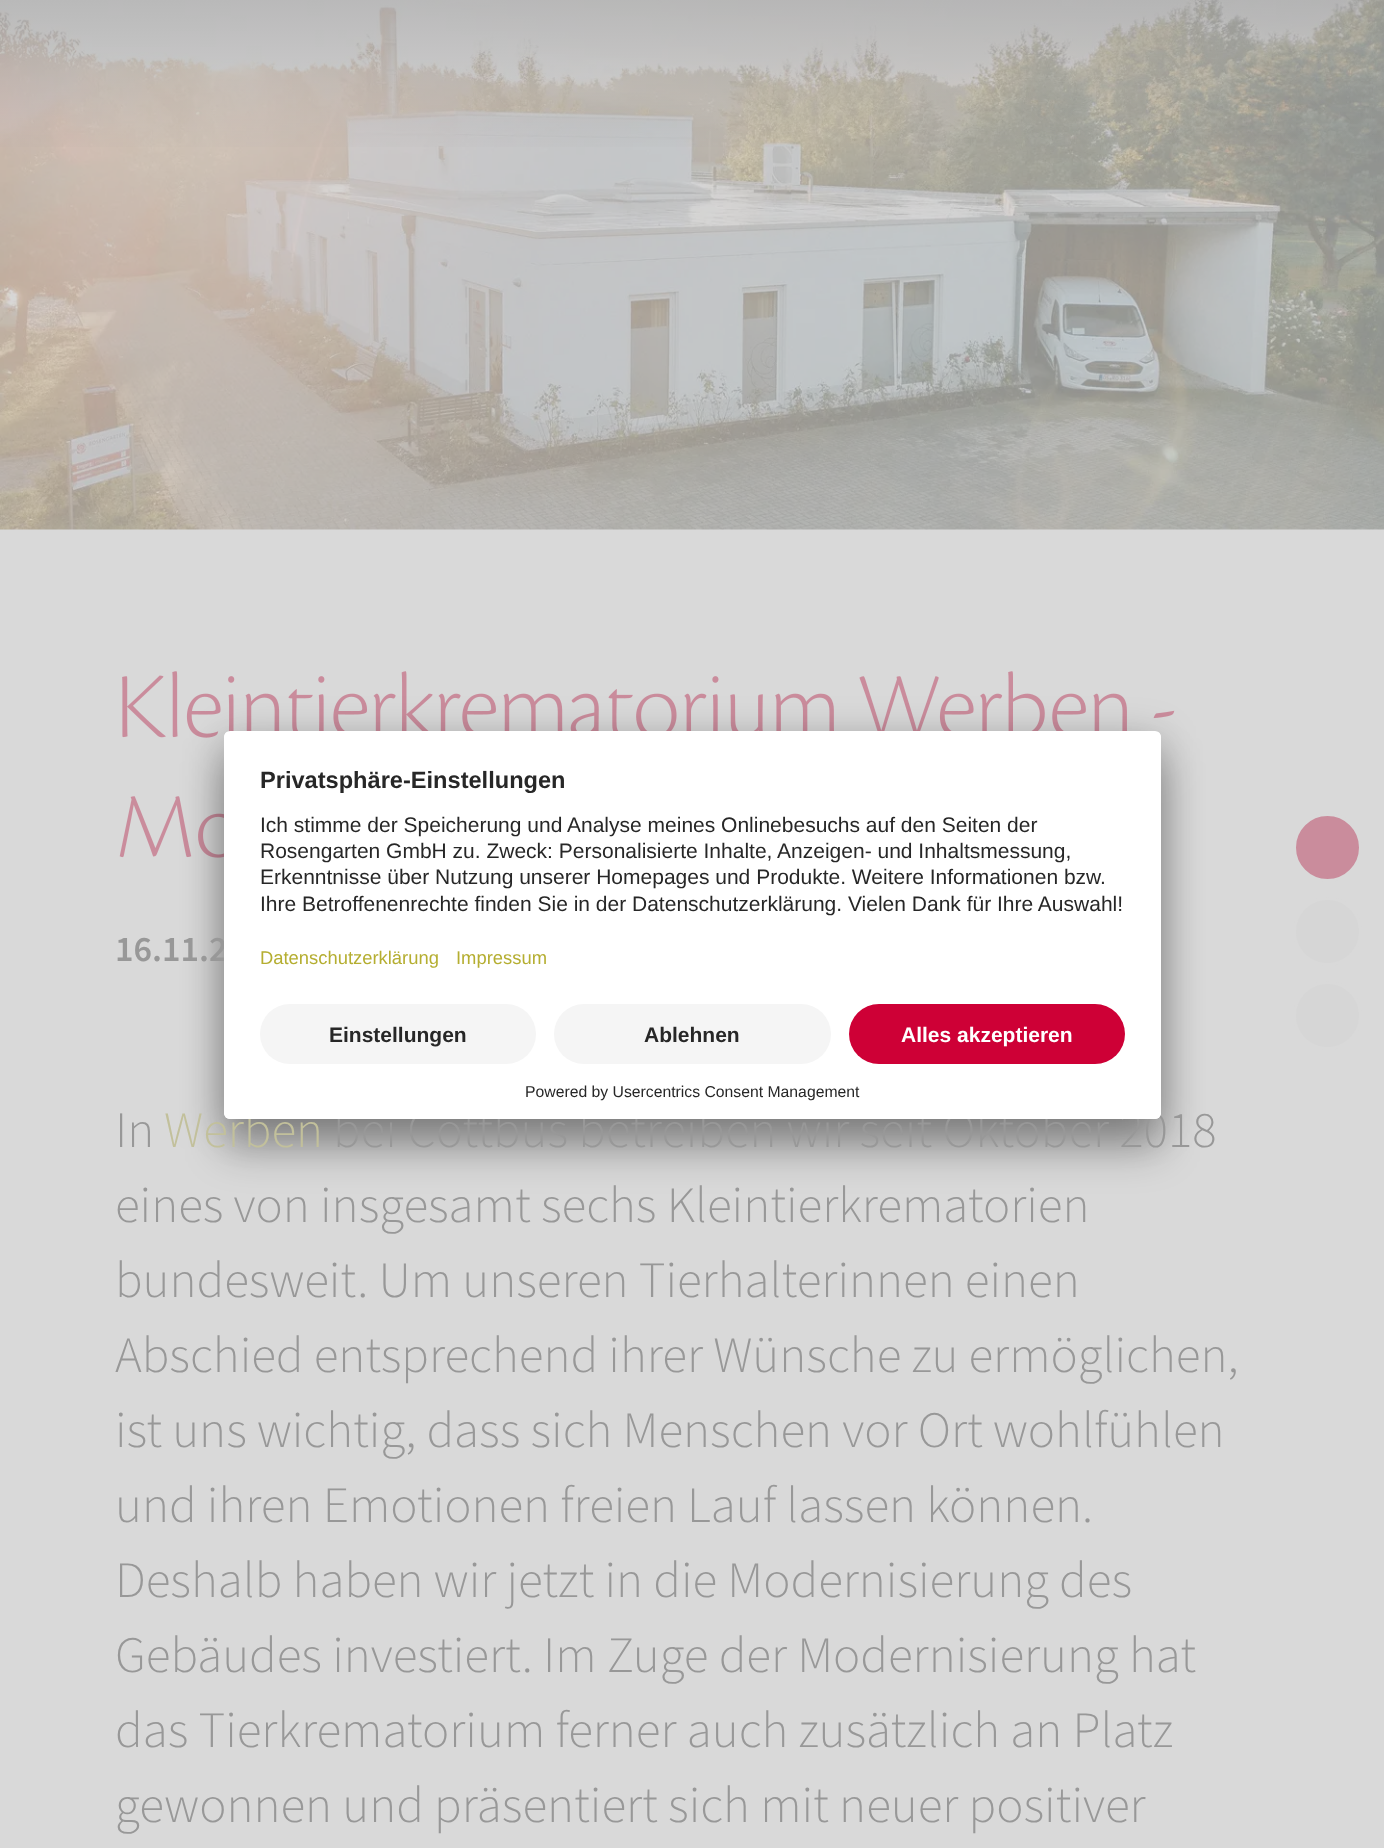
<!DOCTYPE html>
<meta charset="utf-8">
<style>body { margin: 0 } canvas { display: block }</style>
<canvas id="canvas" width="1384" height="1848"></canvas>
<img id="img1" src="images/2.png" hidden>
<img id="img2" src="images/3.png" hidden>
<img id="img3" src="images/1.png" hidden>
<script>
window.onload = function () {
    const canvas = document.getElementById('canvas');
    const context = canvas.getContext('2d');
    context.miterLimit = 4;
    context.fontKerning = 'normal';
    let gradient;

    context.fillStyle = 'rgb(217, 217, 217)';
    context.fillRect(0, 0, 1384, 1848);
    context.drawImage(document.getElementById('img1'), 122, 671, 1053, 67);
    context.drawImage(document.getElementById('img2'), 119, 796, 105, 62);
    context.fillStyle = 'rgba(0, 0, 0, 0.3)';
    context.filter = 'blur(21px)';
    context.beginPath();
    context.roundRect(224, 761, 937, 388, 6);
    context.fill();
    context.filter = 'none';
    context.fillStyle = 'rgba(0, 0, 0, 0.22)';
    context.filter = 'blur(19.5px)';
    context.beginPath();
    context.roundRect(224, 738, 937, 389, 6);
    context.fill();
    context.filter = 'none';
    context.fillStyle = 'rgb(202, 140, 156)';
    context.beginPath();
    context.arc(1327.5, 847.5, 33, 0, 2 * Math.PI);
    context.fill();
    context.strokeStyle = 'rgb(217, 217, 217)';
    context.lineWidth = 3;
    context.stroke();
    context.fillStyle = 'rgb(214, 214, 214)';
    context.beginPath();
    context.arc(1327.5, 931.5, 33, 0, 2 * Math.PI);
    context.fill();
    context.stroke();
    context.beginPath();
    context.arc(1327.5, 1015.5, 33, 0, 2 * Math.PI);
    context.fill();
    context.stroke();
    context.drawImage(document.getElementById('img3'), 0, 0, 1384, 530);
    gradient = context.createLinearGradient(692, 530, 692, 0);
    gradient.addColorStop(0, 'rgba(217, 217, 217, 0)');
    gradient.addColorStop(0.7, 'rgba(140, 140, 140, 0)');
    gradient.addColorStop(1, 'rgba(140, 140, 140, 0.4)');
    context.fillStyle = gradient;
    context.fillRect(0, 0, 1384, 147);
    context.font = '600 36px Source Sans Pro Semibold';
    context.fillStyle = 'rgb(152, 152, 152)';
    context.fillText('16.11.2', 115, 961);
    context.font = '300 51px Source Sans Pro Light';
    context.fillText('In', 115, 1147);
    context.fillStyle = 'rgb(194, 192, 155)';
    context.fillText('Werben', 164, 1147);
    context.fillStyle = 'rgb(152, 152, 152)';
    context.fillText('bei Cottbus betreiben wir seit Oktober 2018', 333, 1147);
    context.fillStyle = 'rgb(255, 255, 255)';
    context.beginPath();
    context.roundRect(224, 731, 937, 388, 6);
    context.fill();
    context.save();
    context.beginPath();
    context.roundRect(224, 731, 937, 388, 6);
    context.clip();
    context.beginPath();
    context.roundRect(224, 731, 937, 261, [6, 6, 0, 0]);
    context.clip();
    context.fillRect(224, 732, 937, 260);
    context.restore();
    context.font = '18.4px Liberation Sans';
    context.fillStyle = 'rgb(181, 174, 49)';
    context.fillText('Impressum', 456, 964);
    context.fillText('Datenschutzerklärung', 260, 964);
    context.font = 'bold 23.6px Liberation Sans';
    context.fillStyle = 'rgb(39, 39, 39)';
    context.fillText('Privatsphäre-Einstellungen', 260, 788);
    context.font = '21px Liberation Sans';
    context.fillText('Ihre Betroffenenrechte finden Sie in der Datenschutzerklärung. Vielen Dank für Ihre Auswahl!', 260, 911);
    context.fillText('Erkenntnisse über Nutzung unserer Homepages und Produkte. Weitere Informationen bzw.', 260, 884);
    context.fillText('Rosengarten GmbH zu. Zweck: Personalisierte Inhalte, Anzeigen- und Inhaltsmessung,', 260, 858);
    context.fillText('Ich stimme der Speicherung und Analyse meines Onlinebesuchs auf den Seiten der', 260, 832);
    context.fillStyle = 'rgb(255, 255, 255)';
    context.beginPath();
    context.roundRect(224, 992, 937, 127, [0, 0, 6, 6]);
    context.fill();
    context.font = '15.75px Liberation Sans';
    context.fillStyle = 'rgb(39, 39, 39)';
    context.fillText('Powered by Usercentrics Consent Management', 525, 1097);
    context.fillStyle = 'rgb(206, 0, 54)';
    context.beginPath();
    context.roundRect(849, 1004, 276, 60, 30);
    context.fill();
    context.font = 'bold 21px Liberation Sans';
    context.fillStyle = 'rgb(255, 255, 255)';
    context.fillText('Alles akzeptieren', 901, 1042);
    context.fillStyle = 'rgb(245, 245, 245)';
    context.beginPath();
    context.roundRect(554, 1004, 277, 60, 30);
    context.fill();
    context.fillStyle = 'rgb(39, 39, 39)';
    context.fillText('Ablehnen', 644, 1042);
    context.fillStyle = 'rgb(245, 245, 245)';
    context.beginPath();
    context.roundRect(260, 1004, 276, 60, 30);
    context.fill();
    context.fillStyle = 'rgb(39, 39, 39)';
    context.fillText('Einstellungen', 329, 1042);
    context.font = '300 51px Source Sans Pro Light';
    context.fillStyle = 'rgb(152, 152, 152)';
    context.fillText('eines von insgesamt sechs Kleintierkrematorien', 115, 1222);
    context.fillText('bundesweit. Um unseren Tierhalterinnen einen', 115, 1297);
    context.fillText('Abschied entsprechend ihrer Wünsche zu ermöglichen,', 115, 1372);
    context.fillText('ist uns wichtig, dass sich Menschen vor Ort wohlfühlen', 115, 1447);
    context.fillText('und ihren Emotionen freien Lauf lassen können.', 115, 1522);
    context.fillText('Deshalb haben wir jetzt in die Modernisierung des', 115, 1597);
    context.fillText('Gebäudes investiert. Im Zuge der Modernisierung hat', 115, 1672);
    context.fillText('das Tierkrematorium ferner auch zusätzlich an Platz', 115, 1747);
    context.fillText('gewonnen und präsentiert sich mit neuer positiver', 115, 1822);
};
</script>
